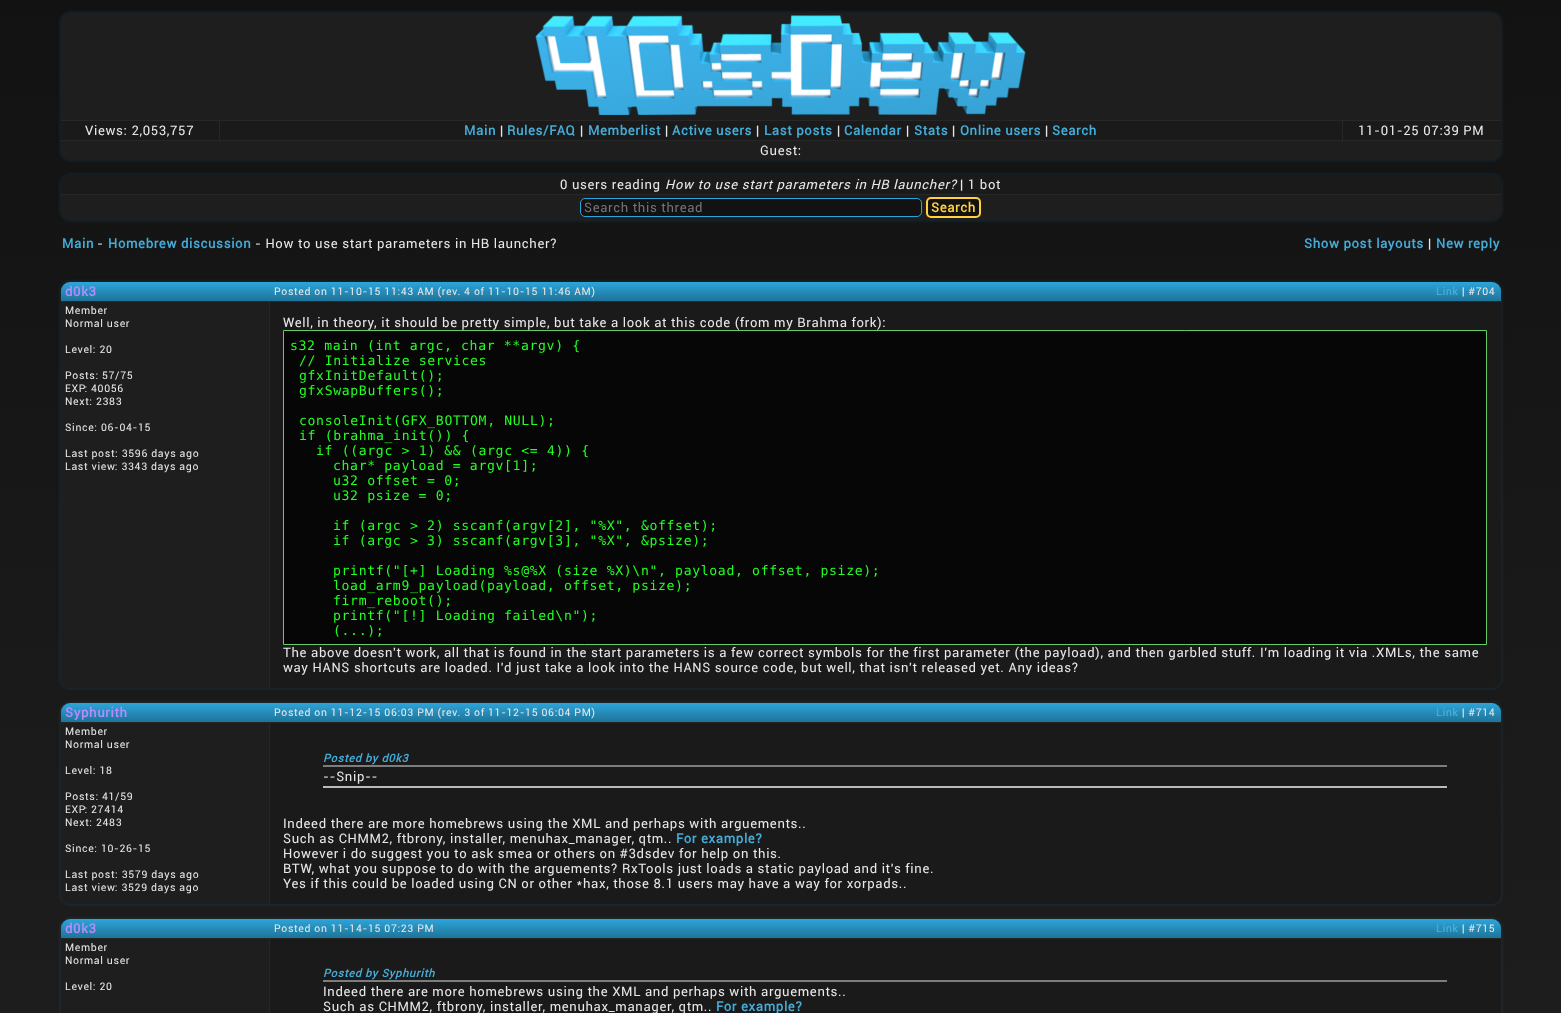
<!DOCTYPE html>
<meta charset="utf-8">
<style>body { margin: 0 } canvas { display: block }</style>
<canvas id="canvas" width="1561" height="1013"></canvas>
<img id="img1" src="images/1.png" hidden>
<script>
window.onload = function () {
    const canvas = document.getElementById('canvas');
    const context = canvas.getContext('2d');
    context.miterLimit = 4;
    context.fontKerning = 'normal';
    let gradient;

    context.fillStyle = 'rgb(255, 255, 255)';
    context.fillRect(0, 0, 1561, 1013);
    gradient = context.createLinearGradient(780, 0, 781, 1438);
    gradient.addColorStop(0, 'rgb(18, 18, 18)');
    gradient.addColorStop(1, 'rgb(34, 34, 34)');
    context.fillStyle = gradient;
    context.fillRect(0, 0, 1561, 1013);
    context.fillStyle = 'rgba(44, 165, 218, 0.2)';
    context.filter = 'blur(2px)';
    context.beginPath();
    context.roundRect(61, 13, 1440, 147, 9);
    context.fill();
    context.filter = 'none';
    context.fillStyle = 'rgb(30, 30, 30)';
    context.beginPath();
    context.roundRect(61, 13, 1440, 107, [9, 9, 0, 0]);
    context.fill();
    context.drawImage(document.getElementById('img1'), 535, 15, 491, 100);
    context.fillStyle = 'rgb(26, 26, 26)';
    context.fillRect(61, 121, 158, 19);
    context.fillStyle = 'rgb(39, 39, 39)';
    context.fillRect(61, 120, 1440, 1);
    context.fillStyle = 'rgb(26, 26, 26)';
    context.fillRect(220, 121, 1122, 19);
    context.fillStyle = 'rgb(39, 39, 39)';
    context.fillRect(219, 120, 1, 20);
    context.fillStyle = 'rgb(26, 26, 26)';
    context.fillRect(1343, 121, 158, 19);
    context.fillStyle = 'rgb(39, 39, 39)';
    context.fillRect(1342, 120, 1, 20);
    context.fillStyle = 'rgb(30, 30, 30)';
    context.beginPath();
    context.roundRect(61, 140, 1440, 20, [0, 0, 9, 9]);
    context.fill();
    context.fillStyle = 'rgb(39, 39, 39)';
    context.fillRect(61, 140, 1440, 1);
    context.fillStyle = 'rgba(44, 165, 218, 0.2)';
    context.filter = 'blur(2px)';
    context.beginPath();
    context.roundRect(61, 175, 1440, 45, 9);
    context.fill();
    context.filter = 'none';
    context.fillStyle = 'rgb(26, 26, 26)';
    context.beginPath();
    context.roundRect(61, 175, 1440, 19, [9, 9, 0, 0]);
    context.fill();
    context.fillStyle = 'rgb(30, 30, 30)';
    context.beginPath();
    context.roundRect(61, 194, 1440, 26, [0, 0, 9, 9]);
    context.fill();
    context.fillStyle = 'rgb(39, 39, 39)';
    context.fillRect(61, 194, 1440, 1);
    context.fillStyle = 'rgb(18, 18, 18)';
    context.beginPath();
    context.roundRect(580.5, 198.5, 341, 18, 4.5);
    context.fill();
    context.strokeStyle = 'rgb(44, 165, 218)';
    context.stroke();
    context.beginPath();
    context.roundRect(927, 198, 53, 19, 4);
    context.fill();
    context.strokeStyle = 'rgb(255, 208, 64)';
    context.lineWidth = 2;
    context.stroke();
    context.fillStyle = 'rgba(44, 165, 218, 0.2)';
    context.filter = 'blur(2px)';
    context.beginPath();
    context.roundRect(61, 282, 1440, 406, 9);
    context.fill();
    context.filter = 'none';
    context.fillStyle = 'rgb(44, 165, 218)';
    context.beginPath();
    context.roundRect(61, 282, 208, 19, [9, 0, 0, 0]);
    context.fill();
    gradient = context.createLinearGradient(165, 282, 165, 301);
    gradient.addColorStop(0, 'rgba(0, 0, 0, 0)');
    gradient.addColorStop(1, 'rgba(0, 0, 0, 0.3)');
    context.fillStyle = gradient;
    context.beginPath();
    context.roundRect(61, 282, 208, 19, [9, 0, 0, 0]);
    context.fill();
    context.fillStyle = 'rgb(44, 165, 218)';
    context.beginPath();
    context.roundRect(269, 282, 1232, 19, [0, 9, 0, 0]);
    context.fill();
    gradient = context.createLinearGradient(885, 282, 885, 301);
    gradient.addColorStop(0, 'rgba(0, 0, 0, 0)');
    gradient.addColorStop(1, 'rgba(0, 0, 0, 0.3)');
    context.fillStyle = gradient;
    context.beginPath();
    context.roundRect(269, 282, 1232, 19, [0, 9, 0, 0]);
    context.fill();
    context.fillStyle = 'rgb(30, 30, 30)';
    context.beginPath();
    context.roundRect(61, 301, 208, 387, [0, 0, 0, 9]);
    context.fill();
    context.fillStyle = 'rgb(39, 39, 39)';
    context.fillRect(61, 301, 208, 1);
    context.fillStyle = 'rgb(26, 26, 26)';
    context.beginPath();
    context.roundRect(269, 301, 1232, 387, [0, 0, 9, 0]);
    context.fill();
    context.fillStyle = 'rgb(39, 39, 39)';
    context.fillRect(269, 301, 1232, 1);
    context.fillRect(269, 301, 1, 387);
    context.fillStyle = 'rgb(6, 6, 6)';
    context.beginPath();
    context.rect(283.5, 330.5, 1203, 314);
    context.fill();
    context.strokeStyle = 'rgb(102, 204, 102)';
    context.lineWidth = 1;
    context.stroke();
    context.fillStyle = 'rgba(44, 165, 218, 0.2)';
    context.filter = 'blur(2px)';
    context.beginPath();
    context.roundRect(61, 703, 1440, 201, 9);
    context.fill();
    context.filter = 'none';
    context.fillStyle = 'rgb(44, 165, 218)';
    context.beginPath();
    context.roundRect(61, 703, 208, 19, [9, 0, 0, 0]);
    context.fill();
    gradient = context.createLinearGradient(165, 703, 165, 722);
    gradient.addColorStop(0, 'rgba(0, 0, 0, 0)');
    gradient.addColorStop(1, 'rgba(0, 0, 0, 0.3)');
    context.fillStyle = gradient;
    context.beginPath();
    context.roundRect(61, 703, 208, 19, [9, 0, 0, 0]);
    context.fill();
    context.fillStyle = 'rgb(44, 165, 218)';
    context.beginPath();
    context.roundRect(269, 703, 1232, 19, [0, 9, 0, 0]);
    context.fill();
    gradient = context.createLinearGradient(885, 703, 885, 722);
    gradient.addColorStop(0, 'rgba(0, 0, 0, 0)');
    gradient.addColorStop(1, 'rgba(0, 0, 0, 0.3)');
    context.fillStyle = gradient;
    context.beginPath();
    context.roundRect(269, 703, 1232, 19, [0, 9, 0, 0]);
    context.fill();
    context.fillStyle = 'rgb(30, 30, 30)';
    context.beginPath();
    context.roundRect(61, 722, 208, 182, [0, 0, 0, 9]);
    context.fill();
    context.fillStyle = 'rgb(39, 39, 39)';
    context.fillRect(61, 722, 208, 1);
    context.fillStyle = 'rgb(26, 26, 26)';
    context.beginPath();
    context.roundRect(269, 722, 1232, 182, [0, 0, 9, 0]);
    context.fill();
    context.fillStyle = 'rgb(39, 39, 39)';
    context.fillRect(269, 722, 1232, 1);
    context.fillRect(269, 722, 1, 182);
    context.fillStyle = 'rgb(125, 125, 125)';
    context.fillRect(323, 765, 1124, 2);
    context.fillStyle = 'rgb(187, 187, 187)';
    context.fillRect(323, 786, 1124, 2);
    context.fillStyle = 'rgba(44, 165, 218, 0.2)';
    context.filter = 'blur(2px)';
    context.beginPath();
    context.roundRect(61, 919, 1440, 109, 9);
    context.fill();
    context.filter = 'none';
    context.fillStyle = 'rgb(44, 165, 218)';
    context.beginPath();
    context.roundRect(61, 919, 208, 19, [9, 0, 0, 0]);
    context.fill();
    gradient = context.createLinearGradient(165, 919, 165, 938);
    gradient.addColorStop(0, 'rgba(0, 0, 0, 0)');
    gradient.addColorStop(1, 'rgba(0, 0, 0, 0.3)');
    context.fillStyle = gradient;
    context.beginPath();
    context.roundRect(61, 919, 208, 19, [9, 0, 0, 0]);
    context.fill();
    context.fillStyle = 'rgb(44, 165, 218)';
    context.beginPath();
    context.roundRect(269, 919, 1232, 19, [0, 9, 0, 0]);
    context.fill();
    gradient = context.createLinearGradient(885, 919, 885, 938);
    gradient.addColorStop(0, 'rgba(0, 0, 0, 0)');
    gradient.addColorStop(1, 'rgba(0, 0, 0, 0.3)');
    context.fillStyle = gradient;
    context.beginPath();
    context.roundRect(269, 919, 1232, 19, [0, 9, 0, 0]);
    context.fill();
    context.fillStyle = 'rgb(30, 30, 30)';
    context.fillRect(61, 939, 208, 74);
    context.fillStyle = 'rgb(39, 39, 39)';
    context.fillRect(61, 938, 1440, 1);
    context.fillStyle = 'rgb(26, 26, 26)';
    context.fillRect(270, 939, 1231, 74);
    context.fillStyle = 'rgb(39, 39, 39)';
    context.fillRect(269, 938, 1, 75);
    context.fillStyle = 'rgb(125, 125, 125)';
    context.fillRect(323, 980, 1124, 2);
    context.letterSpacing = '0.66px';
    context.font = '13.12px Roboto';
    context.fillStyle = 'rgb(232, 232, 232)';
    context.fillText('Views: 2,053,757', 85, 135);
    context.font = 'bold 13.12px Roboto';
    context.fillStyle = 'rgb(69, 172, 216)';
    context.fillText('Main', 464, 135);
    context.font = '13.12px Roboto';
    context.fillStyle = 'rgb(232, 232, 232)';
    context.fillText('|', 500, 135);
    context.font = 'bold 13.12px Roboto';
    context.fillStyle = 'rgb(69, 172, 216)';
    context.fillText('Rules/FAQ', 507, 135);
    context.font = '13.12px Roboto';
    context.fillStyle = 'rgb(232, 232, 232)';
    context.fillText('|', 580, 135);
    context.font = 'bold 13.12px Roboto';
    context.fillStyle = 'rgb(69, 172, 216)';
    context.fillText('Memberlist', 588, 135);
    context.font = '13.12px Roboto';
    context.fillStyle = 'rgb(232, 232, 232)';
    context.fillText('|', 665, 135);
    context.font = 'bold 13.12px Roboto';
    context.fillStyle = 'rgb(69, 172, 216)';
    context.fillText('Active users', 672, 135);
    context.font = '13.12px Roboto';
    context.fillStyle = 'rgb(232, 232, 232)';
    context.fillText('|', 756, 135);
    context.font = 'bold 13.12px Roboto';
    context.fillStyle = 'rgb(69, 172, 216)';
    context.fillText('Last posts', 764, 135);
    context.font = '13.12px Roboto';
    context.fillStyle = 'rgb(232, 232, 232)';
    context.fillText('|', 837, 135);
    context.font = 'bold 13.12px Roboto';
    context.fillStyle = 'rgb(69, 172, 216)';
    context.fillText('Calendar', 844, 135);
    context.font = '13.12px Roboto';
    context.fillStyle = 'rgb(232, 232, 232)';
    context.fillText('|', 906, 135);
    context.font = 'bold 13.12px Roboto';
    context.fillStyle = 'rgb(69, 172, 216)';
    context.fillText('Stats', 914, 135);
    context.font = '13.12px Roboto';
    context.fillStyle = 'rgb(232, 232, 232)';
    context.fillText('|', 952, 135);
    context.font = 'bold 13.12px Roboto';
    context.fillStyle = 'rgb(69, 172, 216)';
    context.fillText('Online users', 960, 135);
    context.font = '13.12px Roboto';
    context.fillStyle = 'rgb(232, 232, 232)';
    context.fillText('|', 1045, 135);
    context.font = 'bold 13.12px Roboto';
    context.fillStyle = 'rgb(69, 172, 216)';
    context.fillText('Search', 1052, 135);
    context.font = '13.12px Roboto';
    context.fillStyle = 'rgb(232, 232, 232)';
    context.fillText('11-01-25 07:39 PM', 1358, 135);
    context.fillText('Guest:', 760, 155);
    context.fillText('0 users reading', 560, 189);
    context.font = 'italic 13.12px Roboto';
    context.fillText('How to use start parameters in HB launcher?', 665, 189);
    context.font = '13.12px Roboto';
    context.fillText('| 1 bot', 960, 189);
    context.fillStyle = 'rgb(117, 117, 117)';
    context.fillText('Search this thread', 584, 212);
    context.font = 'bold 13.12px Roboto';
    context.fillStyle = 'rgb(255, 208, 64)';
    context.fillText('Search', 931, 212);
    context.fillStyle = 'rgb(69, 172, 216)';
    context.fillText('Main', 62, 248);
    context.font = '13.12px Roboto';
    context.fillStyle = 'rgb(232, 232, 232)';
    context.fillText('-', 97, 248);
    context.font = 'bold 13.12px Roboto';
    context.fillStyle = 'rgb(69, 172, 216)';
    context.fillText('Homebrew discussion', 108, 248);
    context.font = '13.12px Roboto';
    context.fillStyle = 'rgb(232, 232, 232)';
    context.fillText('- How to use start parameters in HB launcher?', 255, 248);
    context.font = 'bold 13.12px Roboto';
    context.fillStyle = 'rgb(69, 172, 216)';
    context.fillText('Show post layouts', 1304, 248);
    context.font = '13.12px Roboto';
    context.fillStyle = 'rgb(232, 232, 232)';
    context.fillText('|', 1428, 248);
    context.font = 'bold 13.12px Roboto';
    context.fillStyle = 'rgb(69, 172, 216)';
    context.fillText('New reply', 1436, 248);
    context.fillStyle = 'rgb(180, 140, 255)';
    context.fillText('d0k3', 65, 296);
    context.font = '10.5px Roboto';
    context.fillStyle = 'rgb(232, 232, 232)';
    context.fillText('Posted on 11-10-15 11:43 AM (rev. 4 of 11-10-15 11:46 AM)', 274, 295);
    context.font = 'bold 10.5px Roboto';
    context.fillStyle = 'rgb(69, 172, 216)';
    context.fillText('Link', 1436, 295);
    context.font = '10.5px Roboto';
    context.fillStyle = 'rgb(232, 232, 232)';
    context.fillText('| #704', 1462, 295);
    context.fillText('Member', 65, 314);
    context.fillText('Normal user', 65, 327);
    context.fillText('Level: 20', 65, 353);
    context.fillText('Posts: 57/75', 65, 379);
    context.fillText('EXP: 40056', 65, 392);
    context.fillText('Next: 2383', 65, 405);
    context.fillText('Since: 06-04-15', 65, 431);
    context.fillText('Last post: 3596 days ago', 65, 457);
    context.fillText('Last view: 3343 days ago', 65, 470);
    context.font = '13.12px Roboto';
    context.fillText('Well, in theory, it should be pretty simple, but take a look at this code (from my Brahma fork):', 283, 327);
    context.font = '13.12px DejaVu Sans Mono';
    context.fillStyle = 'rgb(34, 255, 34)';
    context.fillText('s32 main (int argc, char **argv) {', 290, 350);
    context.fillText('// Initialize services', 299, 365);
    context.fillText('gfxInitDefault();', 299, 380);
    context.fillText('gfxSwapBuffers();', 299, 395);
    context.fillText('consoleInit(GFX_BOTTOM, NULL);', 299, 425);
    context.fillText('if (brahma_init()) {', 299, 440);
    context.fillText('if ((argc > 1) && (argc <= 4)) {', 316, 455);
    context.fillText('char* payload = argv[1];', 333, 470);
    context.fillText('u32 offset = 0;', 333, 485);
    context.fillText('u32 psize = 0;', 333, 500);
    context.fillText('if (argc > 2) sscanf(argv[2], "%X", &offset);', 333, 530);
    context.fillText('if (argc > 3) sscanf(argv[3], "%X", &psize);', 333, 545);
    context.fillText('printf("[+] Loading %s@%X (size %X)\\n", payload, offset, psize);', 333, 575);
    context.fillText('load_arm9_payload(payload, offset, psize);', 333, 590);
    context.fillText('firm_reboot();', 333, 605);
    context.fillText('printf("[!] Loading failed\\n");', 333, 620);
    context.fillText('(...);', 333, 635);
    context.font = '13.12px Roboto';
    context.fillStyle = 'rgb(232, 232, 232)';
    context.fillText('The above doesn\'t work, all that is found in the start parameters is a few correct symbols for the first parameter (the payload), and then garbled stuff. I\'m loading it via .XMLs, the same', 283, 657);
    context.fillText('way HANS shortcuts are loaded. I\'d just take a look into the HANS source code, but well, that isn\'t released yet. Any ideas?', 283, 672);
    context.font = 'bold 13.12px Roboto';
    context.fillStyle = 'rgb(180, 140, 255)';
    context.fillText('Syphurith', 65, 717);
    context.font = '10.5px Roboto';
    context.fillStyle = 'rgb(232, 232, 232)';
    context.fillText('Posted on 11-12-15 06:03 PM (rev. 3 of 11-12-15 06:04 PM)', 274, 716);
    context.font = 'bold 10.5px Roboto';
    context.fillStyle = 'rgb(69, 172, 216)';
    context.fillText('Link', 1436, 716);
    context.font = '10.5px Roboto';
    context.fillStyle = 'rgb(232, 232, 232)';
    context.fillText('| #714', 1462, 716);
    context.fillText('Member', 65, 735);
    context.fillText('Normal user', 65, 748);
    context.fillText('Level: 18', 65, 774);
    context.fillText('Posts: 41/59', 65, 800);
    context.fillText('EXP: 27414', 65, 813);
    context.fillText('Next: 2483', 65, 826);
    context.fillText('Since: 10-26-15', 65, 852);
    context.fillText('Last post: 3579 days ago', 65, 878);
    context.fillText('Last view: 3529 days ago', 65, 891);
    context.font = 'italic bold 11px Roboto';
    context.fillStyle = 'rgb(69, 172, 216)';
    context.fillText('Posted by d0k3', 323, 762);
    context.font = '13.12px Roboto';
    context.fillStyle = 'rgb(232, 232, 232)';
    context.fillText('--Snip--', 323, 781);
    context.fillText('Indeed there are more homebrews using the XML and perhaps with arguements..', 283, 828);
    context.fillText('Such as CHMM2, ftbrony, installer, menuhax_manager, qtm..', 283, 843);
    context.font = 'bold 13.12px Roboto';
    context.fillStyle = 'rgb(69, 172, 216)';
    context.fillText('For example?', 676, 843);
    context.font = '13.12px Roboto';
    context.fillStyle = 'rgb(232, 232, 232)';
    context.fillText('However i do suggest you to ask smea or others on #3dsdev for help on this.', 283, 858);
    context.fillText('BTW, what you suppose to do with the arguements? RxTools just loads a static payload and it\'s fine.', 283, 873);
    context.fillText('Yes if this could be loaded using CN or other *hax, those 8.1 users may have a way for xorpads..', 283, 888);
    context.font = 'bold 13.12px Roboto';
    context.fillStyle = 'rgb(180, 140, 255)';
    context.fillText('d0k3', 65, 933);
    context.font = '10.5px Roboto';
    context.fillStyle = 'rgb(232, 232, 232)';
    context.fillText('Posted on 11-14-15 07:23 PM', 274, 932);
    context.font = 'bold 10.5px Roboto';
    context.fillStyle = 'rgb(69, 172, 216)';
    context.fillText('Link', 1436, 932);
    context.font = '10.5px Roboto';
    context.fillStyle = 'rgb(232, 232, 232)';
    context.fillText('| #715', 1462, 932);
    context.fillText('Member', 65, 951);
    context.fillText('Normal user', 65, 964);
    context.fillText('Level: 20', 65, 990);
    context.font = 'italic bold 11px Roboto';
    context.fillStyle = 'rgb(69, 172, 216)';
    context.fillText('Posted by Syphurith', 323, 977);
    context.font = '13.12px Roboto';
    context.fillStyle = 'rgb(232, 232, 232)';
    context.fillText('Indeed there are more homebrews using the XML and perhaps with arguements..', 323, 996);
    context.fillText('Such as CHMM2, ftbrony, installer, menuhax_manager, qtm..', 323, 1011);
    context.font = 'bold 13.12px Roboto';
    context.fillStyle = 'rgb(69, 172, 216)';
    context.fillText('For example?', 716, 1011);
};
</script>
